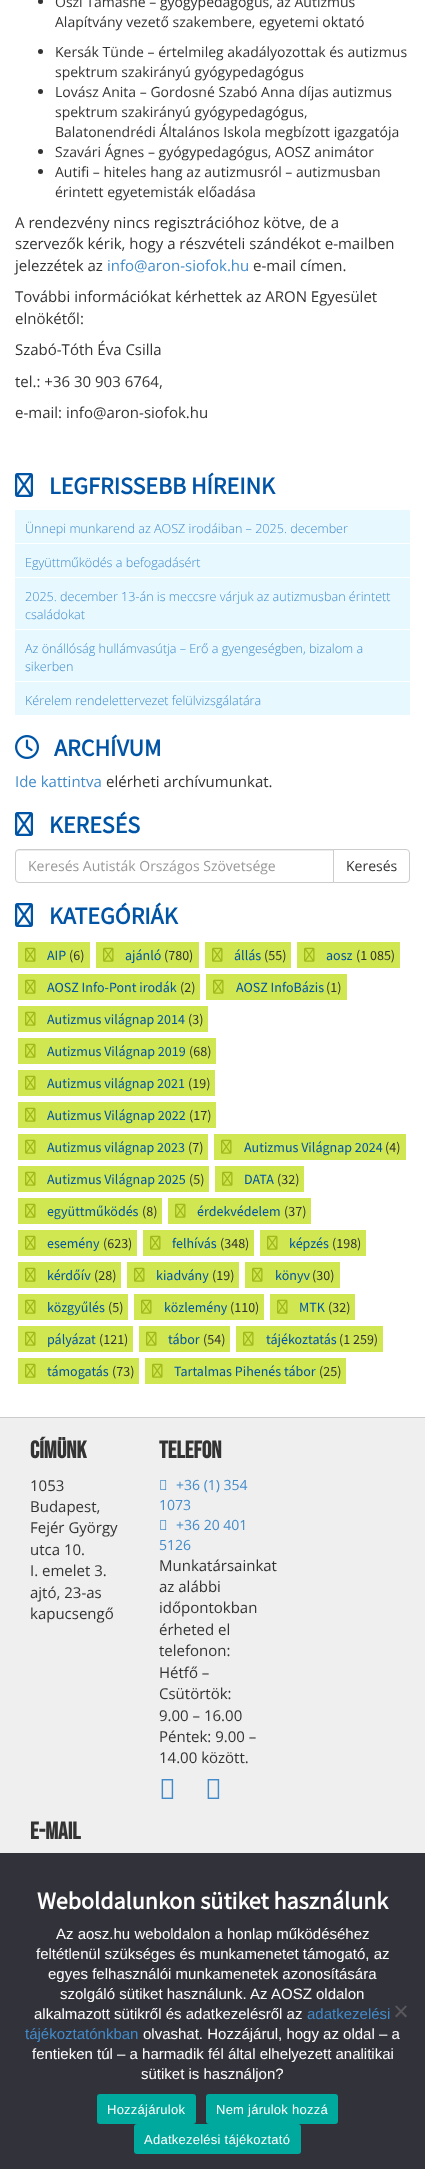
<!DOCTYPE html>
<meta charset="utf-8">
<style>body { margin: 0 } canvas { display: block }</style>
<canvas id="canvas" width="425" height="2169"></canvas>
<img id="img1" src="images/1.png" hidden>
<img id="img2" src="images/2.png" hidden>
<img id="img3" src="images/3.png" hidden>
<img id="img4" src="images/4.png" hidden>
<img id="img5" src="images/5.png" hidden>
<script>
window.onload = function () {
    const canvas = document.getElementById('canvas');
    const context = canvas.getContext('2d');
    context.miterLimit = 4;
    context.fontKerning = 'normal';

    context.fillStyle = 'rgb(255, 255, 255)';
    context.fillRect(0, 0, 425, 2169);
    context.fillStyle = 'rgb(51, 51, 51)';
    context.beginPath();
    context.arc(40.5, 1.5, 2.5, 0, 2 * Math.PI);
    context.fill();
    context.beginPath();
    context.arc(40.5, 51.5, 2.5, 0, 2 * Math.PI);
    context.fill();
    context.beginPath();
    context.arc(40.5, 91.5, 2.5, 0, 2 * Math.PI);
    context.fill();
    context.beginPath();
    context.arc(40.5, 151.5, 2.5, 0, 2 * Math.PI);
    context.fill();
    context.beginPath();
    context.arc(40.5, 171.5, 2.5, 0, 2 * Math.PI);
    context.fill();
    context.drawImage(document.getElementById('img1'), 15, 473, 18, 24);
    context.fillStyle = 'rgb(231, 248, 254)';
    context.fillRect(15, 510, 395, 33);
    context.fillRect(15, 544, 395, 33);
    context.fillRect(15, 578, 395, 51);
    context.fillRect(15, 630, 395, 51);
    context.fillRect(15, 682, 395, 33);
    context.drawImage(document.getElementById('img2'), 15, 735, 24, 24);
    context.drawImage(document.getElementById('img1'), 15, 812, 18, 24);
    context.fillStyle = 'rgb(236, 236, 236)';
    context.beginPath();
    context.moveTo(19, 851);
    context.lineTo(333, 851);
    context.lineTo(333, 850);
    context.lineTo(19, 850);
    context.bezierCurveTo(17, 850, 16, 852, 16, 854);
    context.bezierCurveTo(16, 852, 17, 851, 19, 851);
    context.closePath();
    context.fill();
    context.beginPath();
    context.roundRect(15.5, 849.5, 318, 33, [3.5, 0, 0, 3.5]);
    context.strokeStyle = 'rgb(204, 204, 204)';
    context.stroke();
    context.fillStyle = 'rgb(255, 255, 255)';
    context.beginPath();
    context.roundRect(333.5, 849.5, 76, 33, [0, 3.5, 3.5, 0]);
    context.fill();
    context.stroke();
    context.drawImage(document.getElementById('img1'), 15, 903, 18, 24);
    context.fillStyle = 'rgb(209, 231, 81)';
    context.fillRect(18, 942, 72, 26);
    context.drawImage(document.getElementById('img3'), 25, 947, 11, 15);
    context.fillRect(96, 942, 103, 26);
    context.drawImage(document.getElementById('img3'), 103, 947, 11, 15);
    context.fillRect(205, 942, 86, 26);
    context.drawImage(document.getElementById('img3'), 212, 947, 11, 15);
    context.fillRect(297, 942, 103, 26);
    context.drawImage(document.getElementById('img3'), 304, 947, 11, 15);
    context.fillRect(18, 974, 182, 26);
    context.drawImage(document.getElementById('img3'), 25, 979, 11, 15);
    context.fillRect(206, 974, 141, 26);
    context.drawImage(document.getElementById('img3'), 213, 979, 11, 15);
    context.fillRect(18, 1006, 190, 26);
    context.drawImage(document.getElementById('img3'), 25, 1011, 11, 15);
    context.fillRect(18, 1038, 198, 26);
    context.drawImage(document.getElementById('img3'), 25, 1043, 11, 15);
    context.fillRect(18, 1070, 197, 26);
    context.drawImage(document.getElementById('img3'), 25, 1075, 11, 15);
    context.fillRect(18, 1102, 198, 26);
    context.drawImage(document.getElementById('img3'), 25, 1107, 11, 15);
    context.fillRect(18, 1134, 190, 26);
    context.drawImage(document.getElementById('img3'), 25, 1139, 11, 15);
    context.fillRect(214, 1134, 192, 26);
    context.drawImage(document.getElementById('img3'), 221, 1139, 11, 15);
    context.fillRect(18, 1166, 191, 26);
    context.drawImage(document.getElementById('img3'), 25, 1171, 11, 15);
    context.fillRect(215, 1166, 89, 26);
    context.drawImage(document.getElementById('img3'), 222, 1171, 11, 15);
    context.fillRect(18, 1198, 144, 26);
    context.drawImage(document.getElementById('img3'), 25, 1203, 11, 15);
    context.fillRect(168, 1198, 143, 26);
    context.drawImage(document.getElementById('img3'), 175, 1203, 11, 15);
    context.fillRect(18, 1230, 119, 26);
    context.drawImage(document.getElementById('img3'), 25, 1235, 11, 15);
    context.fillRect(143, 1230, 111, 26);
    context.drawImage(document.getElementById('img3'), 150, 1235, 11, 15);
    context.fillRect(260, 1230, 106, 26);
    context.drawImage(document.getElementById('img3'), 267, 1235, 11, 15);
    context.fillRect(18, 1262, 103, 26);
    context.drawImage(document.getElementById('img3'), 25, 1267, 11, 15);
    context.fillRect(127, 1262, 112, 26);
    context.drawImage(document.getElementById('img3'), 134, 1267, 11, 15);
    context.fillRect(245, 1262, 95, 26);
    context.drawImage(document.getElementById('img3'), 252, 1267, 11, 15);
    context.fillRect(18, 1294, 110, 26);
    context.drawImage(document.getElementById('img3'), 25, 1299, 11, 15);
    context.fillRect(134, 1294, 130, 26);
    context.drawImage(document.getElementById('img3'), 141, 1299, 11, 15);
    context.fillRect(270, 1294, 85, 26);
    context.drawImage(document.getElementById('img3'), 277, 1299, 11, 15);
    context.fillRect(18, 1326, 115, 26);
    context.drawImage(document.getElementById('img3'), 25, 1331, 11, 15);
    context.fillRect(139, 1326, 91, 26);
    context.drawImage(document.getElementById('img3'), 146, 1331, 11, 15);
    context.fillRect(236, 1326, 147, 26);
    context.drawImage(document.getElementById('img3'), 243, 1331, 11, 15);
    context.fillRect(18, 1358, 121, 26);
    context.drawImage(document.getElementById('img3'), 25, 1363, 11, 15);
    context.fillRect(145, 1358, 201, 26);
    context.drawImage(document.getElementById('img3'), 152, 1363, 11, 15);
    context.fillStyle = 'rgb(239, 239, 239)';
    context.fillRect(0, 1418, 425, 435);
    context.fillStyle = 'rgb(204, 204, 204)';
    context.fillRect(0, 1417, 425, 1);
    context.drawImage(document.getElementById('img4'), 160, 1480, 7, 10);
    context.drawImage(document.getElementById('img4'), 160, 1520, 7, 10);
    context.drawImage(document.getElementById('img5'), 161, 1779, 13, 20);
    context.drawImage(document.getElementById('img5'), 207, 1779, 13, 20);
    context.fillStyle = 'rgb(50, 50, 58)';
    context.fillRect(0, 1853, 425, 316);
    context.fillStyle = 'rgb(89, 89, 93)';
    context.beginPath();
    context.moveTo(405.5, 2005.5);
    context.lineTo(407, 2006.5);
    context.lineTo(396.5, 2017.5);
    context.lineTo(395, 2016);
    context.closePath();
    context.fill();
    context.beginPath();
    context.moveTo(395, 2006.5);
    context.lineTo(396.5, 2005.5);
    context.lineTo(407, 2016);
    context.lineTo(405.5, 2017.5);
    context.closePath();
    context.fill();
    context.fillStyle = 'rgb(0, 169, 157)';
    context.beginPath();
    context.roundRect(97, 2094, 99, 30, 3);
    context.fill();
    context.beginPath();
    context.roundRect(206, 2094, 132, 30, 3);
    context.fill();
    context.beginPath();
    context.roundRect(134, 2124, 167, 30, 3);
    context.fill();
    context.font = '14px Open Sans';
    context.fillStyle = 'rgb(51, 51, 51)';
    context.fillText('Őszi Tamásné – gyógypedagógus, az Autizmus', 55, 7);
    context.fillText('Alapítvány vezető szakembere, egyetemi oktató', 55, 27);
    context.fillText('Kersák Tünde – értelmileg akadályozottak és autizmus', 55, 57);
    context.fillText('spektrum szakirányú gyógypedagógus', 55, 77);
    context.fillText('Lovász Anita – Gordosné Szabó Anna díjas autizmus', 55, 97);
    context.fillText('spektrum szakirányú gyógypedagógus,', 55, 117);
    context.fillText('Balatonendrédi Általános Iskola megbízott igazgatója', 55, 137);
    context.fillText('Szavári Ágnes – gyógypedagógus, AOSZ animátor', 55, 157);
    context.fillText('Autifi – hiteles hang az autizmusról – autizmusban', 55, 177);
    context.fillText('érintett egyetemisták előadása', 55, 197);
    context.font = '15px Open Sans';
    context.fillText('A rendezvény nincs regisztrációhoz kötve, de a', 15, 228);
    context.fillText('szervezők kérik, hogy a részvételi szándékot e-mailben', 15, 249);
    context.fillText('jelezzétek az', 15, 271);
    context.fillStyle = 'rgb(66, 139, 202)';
    context.fillText('info@aron-siofok.hu', 107, 271);
    context.fillStyle = 'rgb(51, 51, 51)';
    context.fillText('e-mail címen.', 253, 271);
    context.fillText('További információkat kérhettek az ARON Egyesület', 15, 302);
    context.fillText('elnökétől:', 15, 324);
    context.fillText('Szabó-Tóth Éva Csilla', 15, 355);
    context.fillText('tel.: +36 30 903 6764,', 15, 387);
    context.fillText('e-mail: info@aron-siofok.hu', 15, 418);
    context.font = 'bold 24px Source Sans Pro';
    context.fillStyle = 'rgb(0, 84, 166)';
    context.fillText('LEGFRISSEBB HÍREINK', 49, 494);
    context.font = '300 12.6px Open Sans';
    context.fillStyle = 'rgb(66, 139, 202)';
    context.fillText('Ünnepi munkarend az AOSZ irodáiban – 2025. december', 25, 533);
    context.fillText('Együttműködés a befogadásért', 25, 567);
    context.fillText('2025. december 13-án is meccsre várjuk az autizmusban érintett', 25, 601);
    context.fillText('családokat', 25, 619);
    context.fillText('Az önállóság hullámvasútja – Erő a gyengeségben, bizalom a', 25, 653);
    context.fillText('sikerben', 25, 671);
    context.fillText('Kérelem rendelettervezet felülvizsgálatára', 25, 705);
    context.font = 'bold 24px Source Sans Pro';
    context.fillStyle = 'rgb(0, 84, 166)';
    context.fillText('ARCHÍVUM', 54, 756);
    context.font = '15px Open Sans';
    context.fillStyle = 'rgb(66, 139, 202)';
    context.fillText('Ide kattintva', 15, 787);
    context.fillStyle = 'rgb(51, 51, 51)';
    context.fillText('elérheti archívumunkat.', 106, 787);
    context.font = 'bold 24px Source Sans Pro';
    context.fillStyle = 'rgb(0, 84, 166)';
    context.fillText('KERESÉS', 49, 833);
    context.font = '14px Open Sans';
    context.fillStyle = 'rgb(153, 153, 153)';
    context.fillText('Keresés Autisták Országos Szövetsége', 28, 871);
    context.fillStyle = 'rgb(51, 51, 51)';
    context.fillText('Keresés', 346, 871);
    context.font = 'bold 24px Source Sans Pro';
    context.fillStyle = 'rgb(0, 84, 166)';
    context.fillText('KATEGÓRIÁK', 49, 924);
    context.font = '14px Source Sans Pro';
    context.fillText('AIP', 47, 960);
    context.fillStyle = 'rgb(51, 51, 51)';
    context.fillText('(6)', 69, 960);
    context.fillStyle = 'rgb(0, 84, 166)';
    context.fillText('ajánló', 125, 960);
    context.fillStyle = 'rgb(51, 51, 51)';
    context.fillText('(780)', 164, 960);
    context.fillStyle = 'rgb(0, 84, 166)';
    context.fillText('állás', 234, 960);
    context.fillStyle = 'rgb(51, 51, 51)';
    context.fillText('(55)', 264, 960);
    context.fillStyle = 'rgb(0, 84, 166)';
    context.fillText('aosz', 326, 960);
    context.fillStyle = 'rgb(51, 51, 51)';
    context.fillText('(1 085)', 356, 960);
    context.fillStyle = 'rgb(0, 84, 166)';
    context.fillText('AOSZ Info-Pont irodák', 47, 992);
    context.fillStyle = 'rgb(51, 51, 51)';
    context.fillText('(2)', 180, 992);
    context.fillStyle = 'rgb(0, 84, 166)';
    context.fillText('AOSZ InfoBázis', 236, 992);
    context.fillStyle = 'rgb(51, 51, 51)';
    context.fillText('(1)', 326, 992);
    context.fillStyle = 'rgb(0, 84, 166)';
    context.fillText('Autizmus világnap 2014', 47, 1024);
    context.fillStyle = 'rgb(51, 51, 51)';
    context.fillText('(3)', 188, 1024);
    context.fillStyle = 'rgb(0, 84, 166)';
    context.fillText('Autizmus Világnap 2019', 47, 1056);
    context.fillStyle = 'rgb(51, 51, 51)';
    context.fillText('(68)', 189, 1056);
    context.fillStyle = 'rgb(0, 84, 166)';
    context.fillText('Autizmus világnap 2021', 47, 1088);
    context.fillStyle = 'rgb(51, 51, 51)';
    context.fillText('(19)', 188, 1088);
    context.fillStyle = 'rgb(0, 84, 166)';
    context.fillText('Autizmus Világnap 2022', 47, 1120);
    context.fillStyle = 'rgb(51, 51, 51)';
    context.fillText('(17)', 189, 1120);
    context.fillStyle = 'rgb(0, 84, 166)';
    context.fillText('Autizmus világnap 2023', 47, 1152);
    context.fillStyle = 'rgb(51, 51, 51)';
    context.fillText('(7)', 188, 1152);
    context.fillStyle = 'rgb(0, 84, 166)';
    context.fillText('Autizmus Világnap 2024', 244, 1152);
    context.fillStyle = 'rgb(51, 51, 51)';
    context.fillText('(4)', 385, 1152);
    context.fillStyle = 'rgb(0, 84, 166)';
    context.fillText('Autizmus Világnap 2025', 47, 1184);
    context.fillStyle = 'rgb(51, 51, 51)';
    context.fillText('(5)', 189, 1184);
    context.fillStyle = 'rgb(0, 84, 166)';
    context.fillText('DATA', 244, 1184);
    context.fillStyle = 'rgb(51, 51, 51)';
    context.fillText('(32)', 277, 1184);
    context.fillStyle = 'rgb(0, 84, 166)';
    context.fillText('együttműködés', 47, 1216);
    context.fillStyle = 'rgb(51, 51, 51)';
    context.fillText('(8)', 142, 1216);
    context.fillStyle = 'rgb(0, 84, 166)';
    context.fillText('érdekvédelem', 197, 1216);
    context.fillStyle = 'rgb(51, 51, 51)';
    context.fillText('(37)', 284, 1216);
    context.fillStyle = 'rgb(0, 84, 166)';
    context.fillText('esemény', 47, 1248);
    context.fillStyle = 'rgb(51, 51, 51)';
    context.fillText('(623)', 103, 1248);
    context.fillStyle = 'rgb(0, 84, 166)';
    context.fillText('felhívás', 172, 1248);
    context.fillStyle = 'rgb(51, 51, 51)';
    context.fillText('(348)', 220, 1248);
    context.fillStyle = 'rgb(0, 84, 166)';
    context.fillText('képzés', 289, 1248);
    context.fillStyle = 'rgb(51, 51, 51)';
    context.fillText('(198)', 332, 1248);
    context.fillStyle = 'rgb(0, 84, 166)';
    context.fillText('kérdőív', 47, 1280);
    context.fillStyle = 'rgb(51, 51, 51)';
    context.fillText('(28)', 94, 1280);
    context.fillStyle = 'rgb(0, 84, 166)';
    context.fillText('kiadvány', 156, 1280);
    context.fillStyle = 'rgb(51, 51, 51)';
    context.fillText('(19)', 212, 1280);
    context.fillStyle = 'rgb(0, 84, 166)';
    context.fillText('könyv', 275, 1280);
    context.fillStyle = 'rgb(51, 51, 51)';
    context.fillText('(30)', 312, 1280);
    context.fillStyle = 'rgb(0, 84, 166)';
    context.fillText('közgyűlés', 47, 1312);
    context.fillStyle = 'rgb(51, 51, 51)';
    context.fillText('(5)', 108, 1312);
    context.fillStyle = 'rgb(0, 84, 166)';
    context.fillText('közlemény', 164, 1312);
    context.fillStyle = 'rgb(51, 51, 51)';
    context.fillText('(110)', 230, 1312);
    context.fillStyle = 'rgb(0, 84, 166)';
    context.fillText('MTK', 299, 1312);
    context.fillStyle = 'rgb(51, 51, 51)';
    context.fillText('(32)', 328, 1312);
    context.fillStyle = 'rgb(0, 84, 166)';
    context.fillText('pályázat', 47, 1344);
    context.fillStyle = 'rgb(51, 51, 51)';
    context.fillText('(121)', 99, 1344);
    context.fillStyle = 'rgb(0, 84, 166)';
    context.fillText('tábor', 168, 1344);
    context.fillStyle = 'rgb(51, 51, 51)';
    context.fillText('(54)', 203, 1344);
    context.fillStyle = 'rgb(0, 84, 166)';
    context.fillText('tájékoztatás', 266, 1344);
    context.fillStyle = 'rgb(51, 51, 51)';
    context.fillText('(1 259)', 339, 1344);
    context.fillStyle = 'rgb(0, 84, 166)';
    context.fillText('támogatás', 47, 1376);
    context.fillStyle = 'rgb(51, 51, 51)';
    context.fillText('(73)', 112, 1376);
    context.fillStyle = 'rgb(0, 84, 166)';
    context.fillText('Tartalmas Pihenés tábor', 174, 1376);
    context.fillStyle = 'rgb(51, 51, 51)';
    context.fillText('(25)', 319, 1376);
    context.font = 'bold 24px Bebas Neue';
    context.fillText('Címünk', 30, 1458);
    context.font = '15px Open Sans';
    context.fillText('1053', 30, 1491);
    context.fillText('Budapest,', 30, 1512);
    context.fillText('Fejér György', 30, 1533);
    context.fillText('utca 10.', 30, 1555);
    context.fillText('I. emelet 3.', 30, 1576);
    context.fillText('ajtó, 23-as', 30, 1598);
    context.fillText('kapucsengő', 30, 1619);
    context.font = 'bold 24px Bebas Neue';
    context.fillText('Telefon', 159, 1458);
    context.font = '14px Open Sans';
    context.fillStyle = 'rgb(66, 139, 202)';
    context.fillText('+36 (1) 354', 176, 1490);
    context.fillText('1073', 159, 1510);
    context.fillText('+36 20 401', 176, 1530);
    context.fillText('5126', 159, 1550);
    context.font = '15px Open Sans';
    context.fillStyle = 'rgb(51, 51, 51)';
    context.fillText('Munkatársainkat', 159, 1571);
    context.fillText('az alábbi', 159, 1592);
    context.fillText('időpontokban', 159, 1613);
    context.fillText('érheted el', 159, 1635);
    context.fillText('telefonon:', 159, 1656);
    context.fillText('Hétfő –', 159, 1678);
    context.fillText('Csütörtök:', 159, 1699);
    context.fillText('9.00 – 16.00', 159, 1721);
    context.fillText('Péntek: 9.00 –', 159, 1742);
    context.fillText('14.00 között.', 159, 1763);
    context.font = 'bold 24px Bebas Neue';
    context.fillText('E-mail', 30, 1839);
    context.font = 'bold 24px Source Sans Pro';
    context.fillStyle = 'rgb(255, 255, 255)';
    context.fillText('Weboldalunkon sütiket használunk', 37, 1909);
    context.font = '15px Liberation Sans';
    context.fillText('Az aosz.hu weboldalon a honlap működéséhez', 56, 1939);
    context.fillText('feltétlenül szükséges és munkamenetet támogató, az', 36, 1959);
    context.fillText('egyes felhasználói munkamenetek azonosítására', 48, 1979);
    context.fillText('szolgáló sütiket használunk. Az AOSZ oldalon', 60, 1999);
    context.fillText('alkalmazott sütikről és adatkezelésről az', 34, 2019);
    context.fillStyle = 'rgb(66, 139, 202)';
    context.fillText('adatkezelési', 307, 2019);
    context.fillText('tájékoztatónkban', 25, 2039);
    context.fillStyle = 'rgb(255, 255, 255)';
    context.fillText('olvashat. Hozzájárul, hogy az oldal – a', 143, 2039);
    context.fillText('fentieken túl – a harmadik fél által elhelyezett analitikai', 32, 2059);
    context.fillText('sütiket is használjon?', 141, 2079);
    context.letterSpacing = '0.25px';
    context.font = '13px Liberation Sans';
    context.fillText('Hozzájárulok', 107, 2114);
    context.fillText('Nem járulok hozzá', 216, 2114);
    context.fillText('Adatkezelési tájékoztató', 144, 2144);
};
</script>
